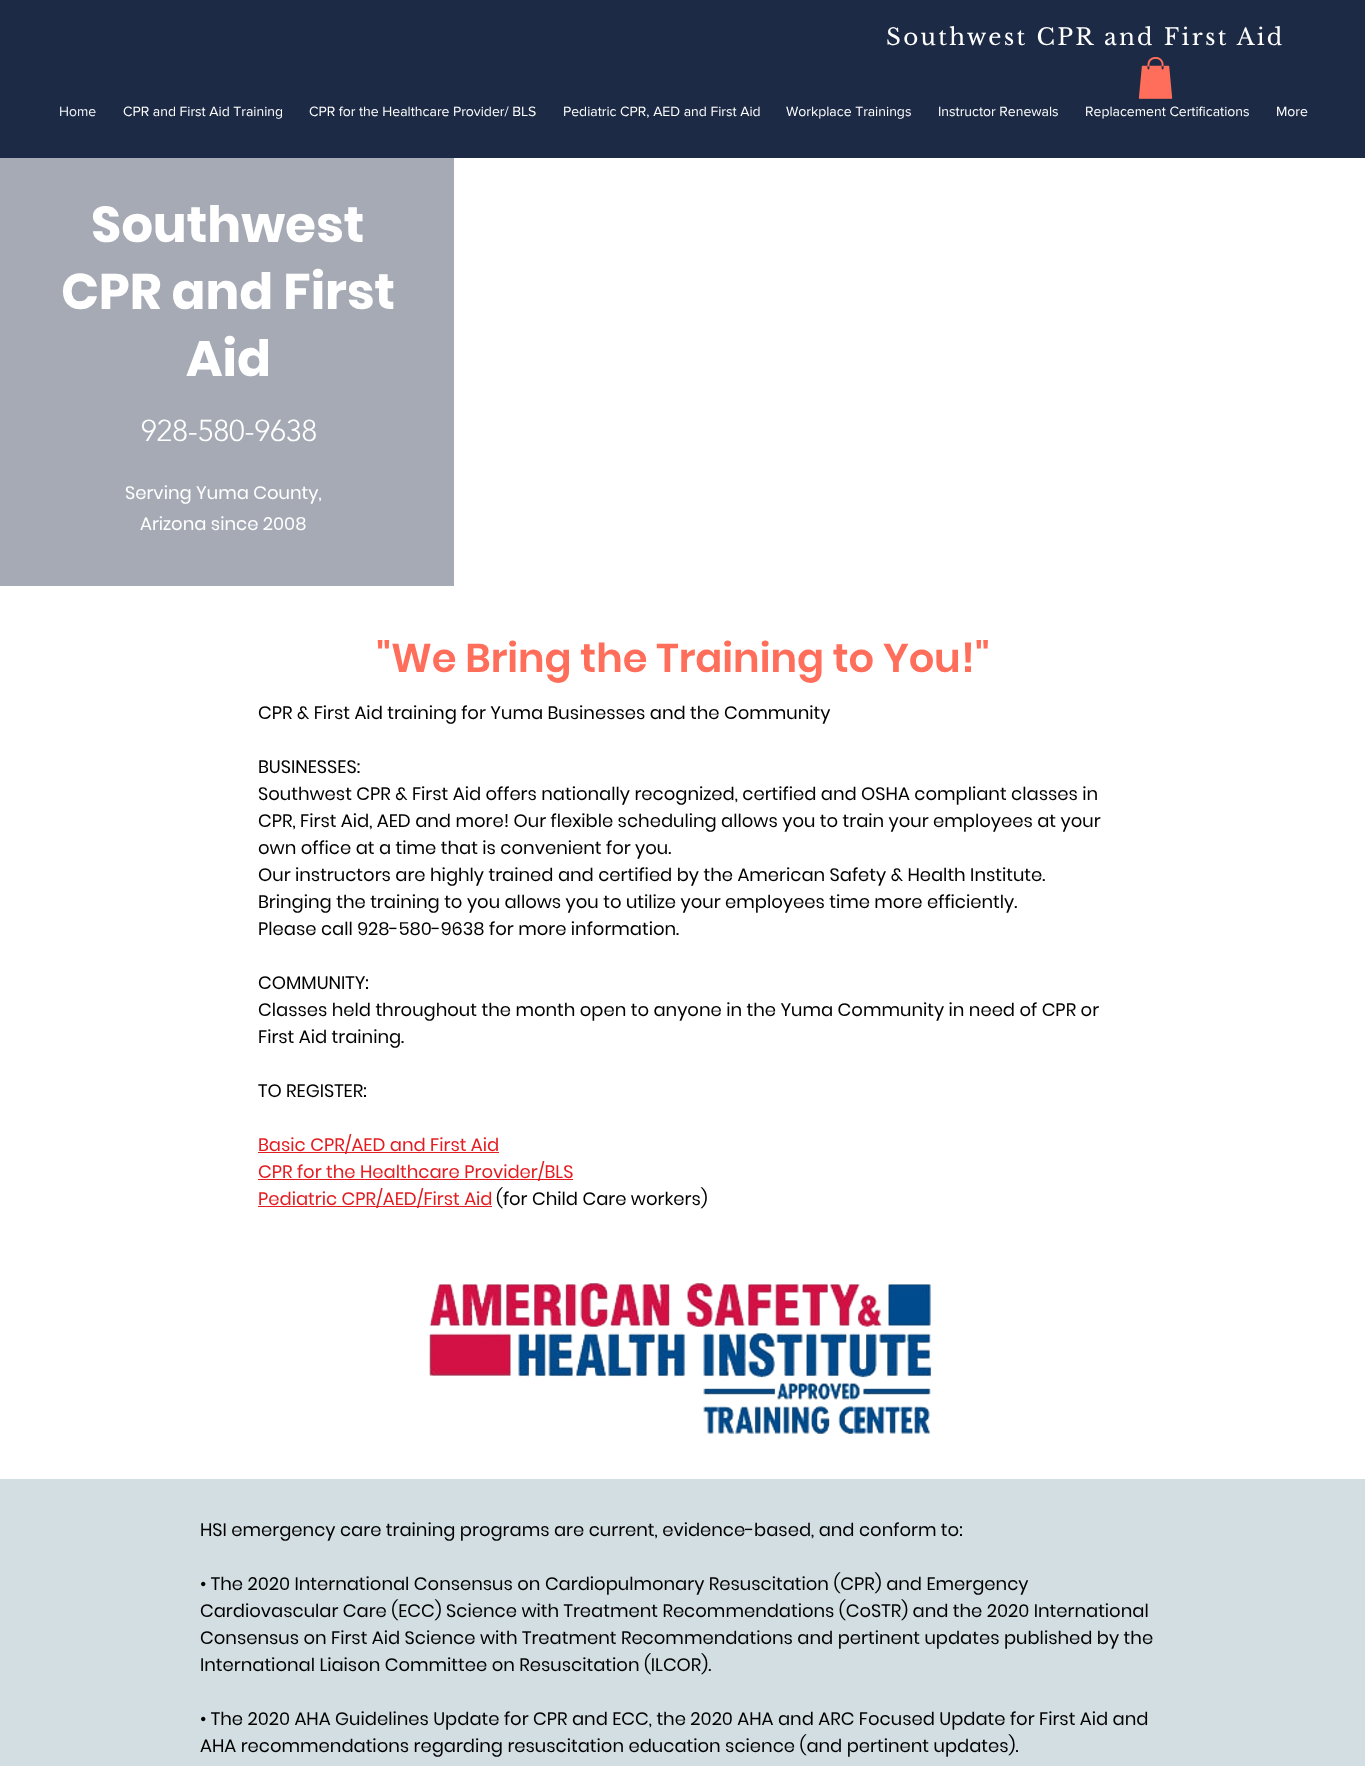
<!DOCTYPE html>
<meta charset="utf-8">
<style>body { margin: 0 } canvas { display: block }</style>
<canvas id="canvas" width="1365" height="1766"></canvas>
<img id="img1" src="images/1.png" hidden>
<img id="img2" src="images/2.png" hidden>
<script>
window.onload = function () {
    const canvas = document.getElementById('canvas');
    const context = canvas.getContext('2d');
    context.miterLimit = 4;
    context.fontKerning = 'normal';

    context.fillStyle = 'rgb(255, 255, 255)';
    context.fillRect(0, 0, 1365, 1766);
    context.fillStyle = 'rgb(28, 42, 69)';
    context.fillRect(0, 0, 1365, 158);
    context.drawImage(document.getElementById('img1'), 1138, 57, 35, 42);
    context.fillStyle = 'rgb(165, 170, 181)';
    context.fillRect(0, 158, 454, 428);
    context.fillStyle = 'rgb(226, 28, 33)';
    context.fillRect(258, 1152, 241, 1);
    context.fillRect(258, 1179, 315, 1);
    context.fillRect(258, 1206, 234, 1);
    context.drawImage(document.getElementById('img2'), 429, 1283, 503, 151);
    context.fillStyle = 'rgb(211, 222, 227)';
    context.fillRect(0, 1479, 1365, 287);
    context.letterSpacing = '2.3px';
    context.font = '23px Libre Baskerville';
    context.fillStyle = 'rgb(255, 255, 255)';
    context.fillText('Southwest CPR and First Aid', 886, 45);
    context.letterSpacing = '0px';
    context.font = '14px "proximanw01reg"';
    context.fillStyle = 'rgb(241, 245, 248)';
    context.fillText('Home', 59, 116);
    context.fillStyle = 'rgb(255, 255, 255)';
    context.fillText('CPR and First Aid Training', 123, 116);
    context.fillText('CPR for the Healthcare Provider/ BLS', 309, 116);
    context.fillText('Pediatric CPR, AED and First Aid', 563, 116);
    context.fillText('Workplace Trainings', 786, 116);
    context.fillText('Instructor Renewals', 938, 116);
    context.fillText('Replacement Certifications', 1085, 116);
    context.fillText('More', 1276, 116);
    context.font = 'bold 50px Poppins';
    context.fillText('Southwest', 91, 242);
    context.fillText('CPR and First', 61, 309);
    context.fillText('Aid', 186, 376);
    context.font = '300 30px "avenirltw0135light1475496"';
    context.fillText('928-580-9638', 141, 441);
    context.font = '18px Poppins';
    context.fillText('Serving Yuma County,', 125, 499);
    context.fillText('Arizona since 2008', 140, 530);
    context.font = '600 40px Poppins';
    context.fillStyle = 'rgb(255, 110, 90)';
    context.fillText('"We Bring the Training to You!"', 376, 672);
    context.font = '18px Poppins';
    context.fillStyle = 'rgb(0, 0, 0)';
    context.fillText('CPR & First Aid training for Yuma Businesses and the Community', 258, 719);
    context.fillText('BUSINESSES:', 258, 773);
    context.fillText('Southwest CPR & First Aid offers nationally recognized, certified and OSHA compliant classes in', 258, 800);
    context.fillText('CPR, First Aid, AED and more! Our flexible scheduling allows you to train your employees at your', 258, 827);
    context.fillText('own office at a time that is convenient for you.', 258, 854);
    context.fillText('Our instructors are highly trained and certified by the American Safety & Health Institute.', 258, 881);
    context.fillText('Bringing the training to you allows you to utilize your employees time more efficiently.', 258, 908);
    context.fillText('Please call 928-580-9638 for more information.', 258, 935);
    context.fillText('COMMUNITY:', 258, 989);
    context.fillText('Classes held throughout the month open to anyone in the Yuma Community in need of CPR or', 258, 1016);
    context.fillText('First Aid training.', 258, 1043);
    context.fillText('TO REGISTER:', 258, 1097);
    context.fillStyle = 'rgb(226, 28, 33)';
    context.fillText('Basic CPR/AED and First Aid', 258, 1151);
    context.fillText('CPR for the Healthcare Provider/BLS', 258, 1178);
    context.fillText('Pediatric CPR/AED/First Aid', 258, 1205);
    context.fillStyle = 'rgb(0, 0, 0)';
    context.fillText('(for Child Care workers)', 496, 1205);
    context.fillText('HSI emergency care training programs are current, evidence-based, and conform to:', 200, 1536);
    context.fillText('• The 2020 International Consensus on Cardiopulmonary Resuscitation (CPR) and Emergency', 200, 1590);
    context.fillText('Cardiovascular Care (ECC) Science with Treatment Recommendations (CoSTR) and the 2020 International', 200, 1617);
    context.fillText('Consensus on First Aid Science with Treatment Recommendations and pertinent updates published by the', 200, 1644);
    context.fillText('International Liaison Committee on Resuscitation (ILCOR).', 200, 1671);
    context.fillText('• The 2020 AHA Guidelines Update for CPR and ECC, the 2020 AHA and ARC Focused Update for First Aid and', 200, 1725);
    context.fillText('AHA recommendations regarding resuscitation education science (and pertinent updates).', 200, 1752);
};
</script>
